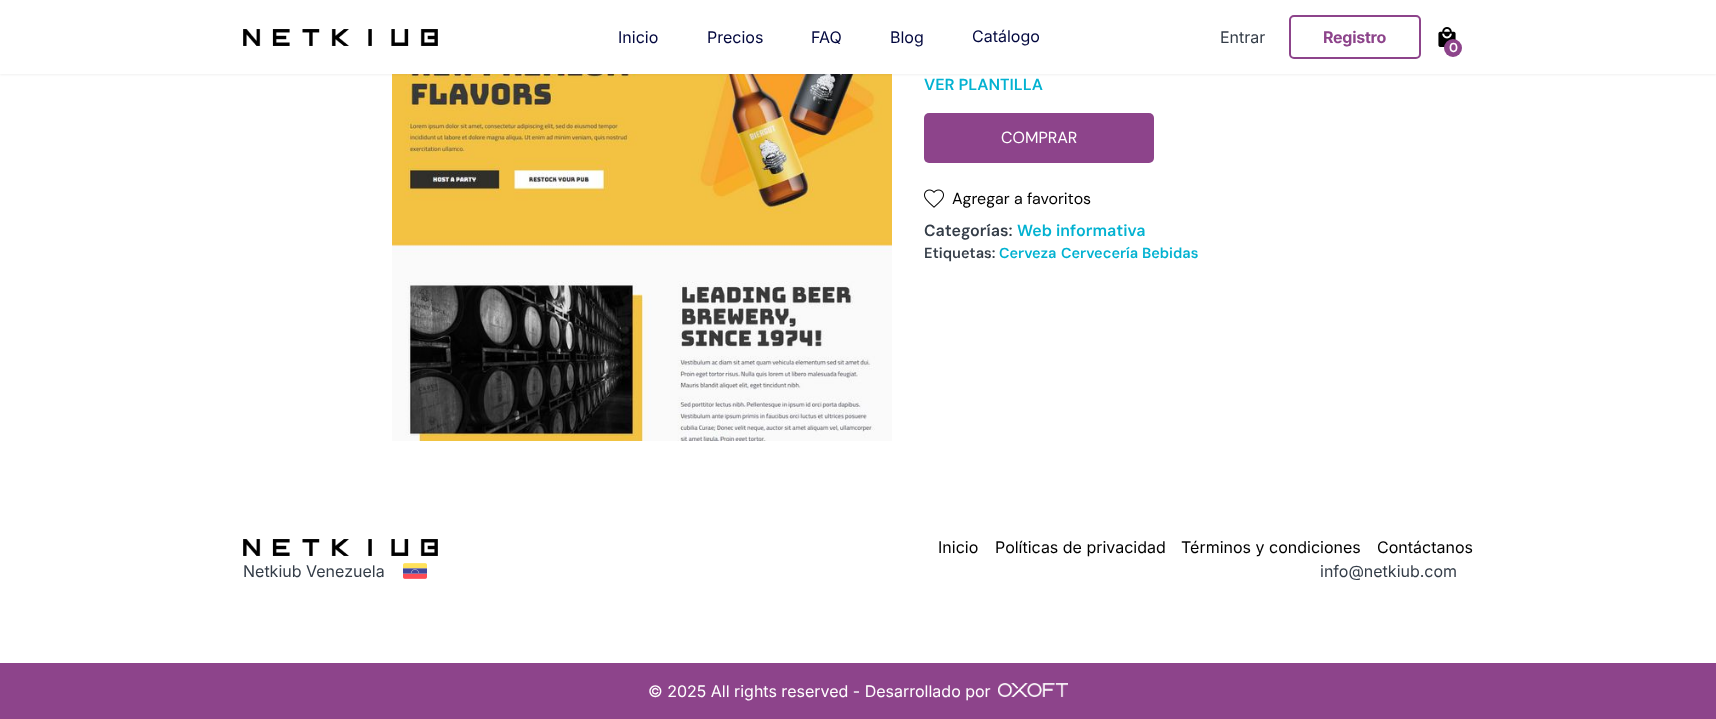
<!DOCTYPE html>
<meta charset="utf-8">
<style>body { margin: 0 } canvas { display: block }</style>
<canvas id="canvas" width="1716" height="719"></canvas>
<img id="img1" src="images/3.png" hidden>
<img id="img2" src="images/1.png" hidden>
<img id="img3" src="images/2.png" hidden>
<img id="img4" src="images/4.png" hidden>
<img id="img5" src="images/5.png" hidden>
<img id="img6" src="images/6.png" hidden>
<script>
window.onload = function () {
    const canvas = document.getElementById('canvas');
    const context = canvas.getContext('2d');
    context.miterLimit = 4;
    context.fontKerning = 'normal';

    context.fillStyle = 'rgb(255, 255, 255)';
    context.fillRect(0, 0, 1716, 719);
    context.drawImage(document.getElementById('img1'), 392, 74, 500, 367);
    context.fillStyle = 'rgba(0, 0, 0, 0.06)';
    context.filter = 'blur(1px)';
    context.beginPath();
    context.rect(0, 1, 1716, 74);
    context.fill();
    context.filter = 'none';
    context.fillStyle = 'rgb(255, 255, 255)';
    context.fillRect(0, 0, 1716, 74);
    context.drawImage(document.getElementById('img2'), 243, 29, 195, 17);
    context.beginPath();
    context.roundRect(1290, 16, 130, 42, 4);
    context.strokeStyle = 'rgb(141, 68, 139)';
    context.lineWidth = 2;
    context.stroke();
    context.drawImage(document.getElementById('img3'), 1438, 27, 18, 20);
    context.fillStyle = 'rgb(141, 68, 139)';
    context.beginPath();
    context.arc(1453, 48, 9, 0, 2 * Math.PI);
    context.fill();
    context.beginPath();
    context.roundRect(924, 113, 230, 50, 5);
    context.fill();
    context.drawImage(document.getElementById('img4'), 924, 189, 20, 19);
    context.drawImage(document.getElementById('img2'), 243, 539, 195, 17);
    context.drawImage(document.getElementById('img5'), 403, 563, 24, 16);
    context.fillRect(0, 663, 1716, 56);
    context.drawImage(document.getElementById('img6'), 998, 683, 70, 14);
    context.font = '16px Inter';
    context.fillStyle = 'rgb(2, 7, 62)';
    context.fillText('Inicio', 618, 43);
    context.fillText('Precios', 707, 43);
    context.fillText('FAQ', 811, 43);
    context.fillText('Blog', 890, 43);
    context.fillText('Catálogo', 972, 42);
    context.fillStyle = 'rgb(52, 61, 72)';
    context.fillText('Entrar', 1220, 43);
    context.letterSpacing = '-0.25px';
    context.font = 'bold 16px Inter';
    context.fillStyle = 'rgb(141, 68, 139)';
    context.fillText('Registro', 1323, 43);
    context.letterSpacing = '0px';
    context.font = '600 13px "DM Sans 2"';
    context.fillStyle = 'rgb(255, 255, 255)';
    context.fillText('0', 1449, 52);
    context.font = '600 16px DM Sans';
    context.fillStyle = 'rgb(3, 178, 209)';
    context.fillText('VER PLANTILLA', 924, 90);
    context.font = '16px DM Sans';
    context.fillStyle = 'rgb(255, 255, 255)';
    context.fillText('COMPRAR', 1001, 143);
    context.fillStyle = 'rgb(0, 0, 0)';
    context.fillText('Agregar a favoritos', 952, 204);
    context.font = '600 16px DM Sans';
    context.fillStyle = 'rgb(52, 61, 72)';
    context.fillText('Categorías:', 924, 236);
    context.fillStyle = 'rgb(3, 178, 209)';
    context.fillText('Web informativa', 1017, 236);
    context.font = '600 14.5px DM Sans';
    context.fillStyle = 'rgb(52, 61, 72)';
    context.fillText('Etiquetas:', 924, 258);
    context.fillStyle = 'rgb(3, 178, 209)';
    context.fillText('Cerveza', 999, 258);
    context.fillText('Cervecería', 1061, 258);
    context.fillText('Bebidas', 1142, 258);
    context.font = '16px Inter';
    context.fillStyle = 'rgb(0, 0, 0)';
    context.fillText('Inicio', 938, 553);
    context.fillText('Políticas de privacidad', 995, 553);
    context.fillText('Términos y condiciones', 1181, 553);
    context.fillText('Contáctanos', 1377, 553);
    context.fillStyle = 'rgb(52, 61, 72)';
    context.fillText('Netkiub Venezuela', 243, 577);
    context.fillText('info@netkiub.com', 1320, 577);
    context.fillStyle = 'rgb(255, 255, 255)';
    context.fillText('© 2025 All rights reserved - Desarrollado por', 648, 697);
};
</script>
